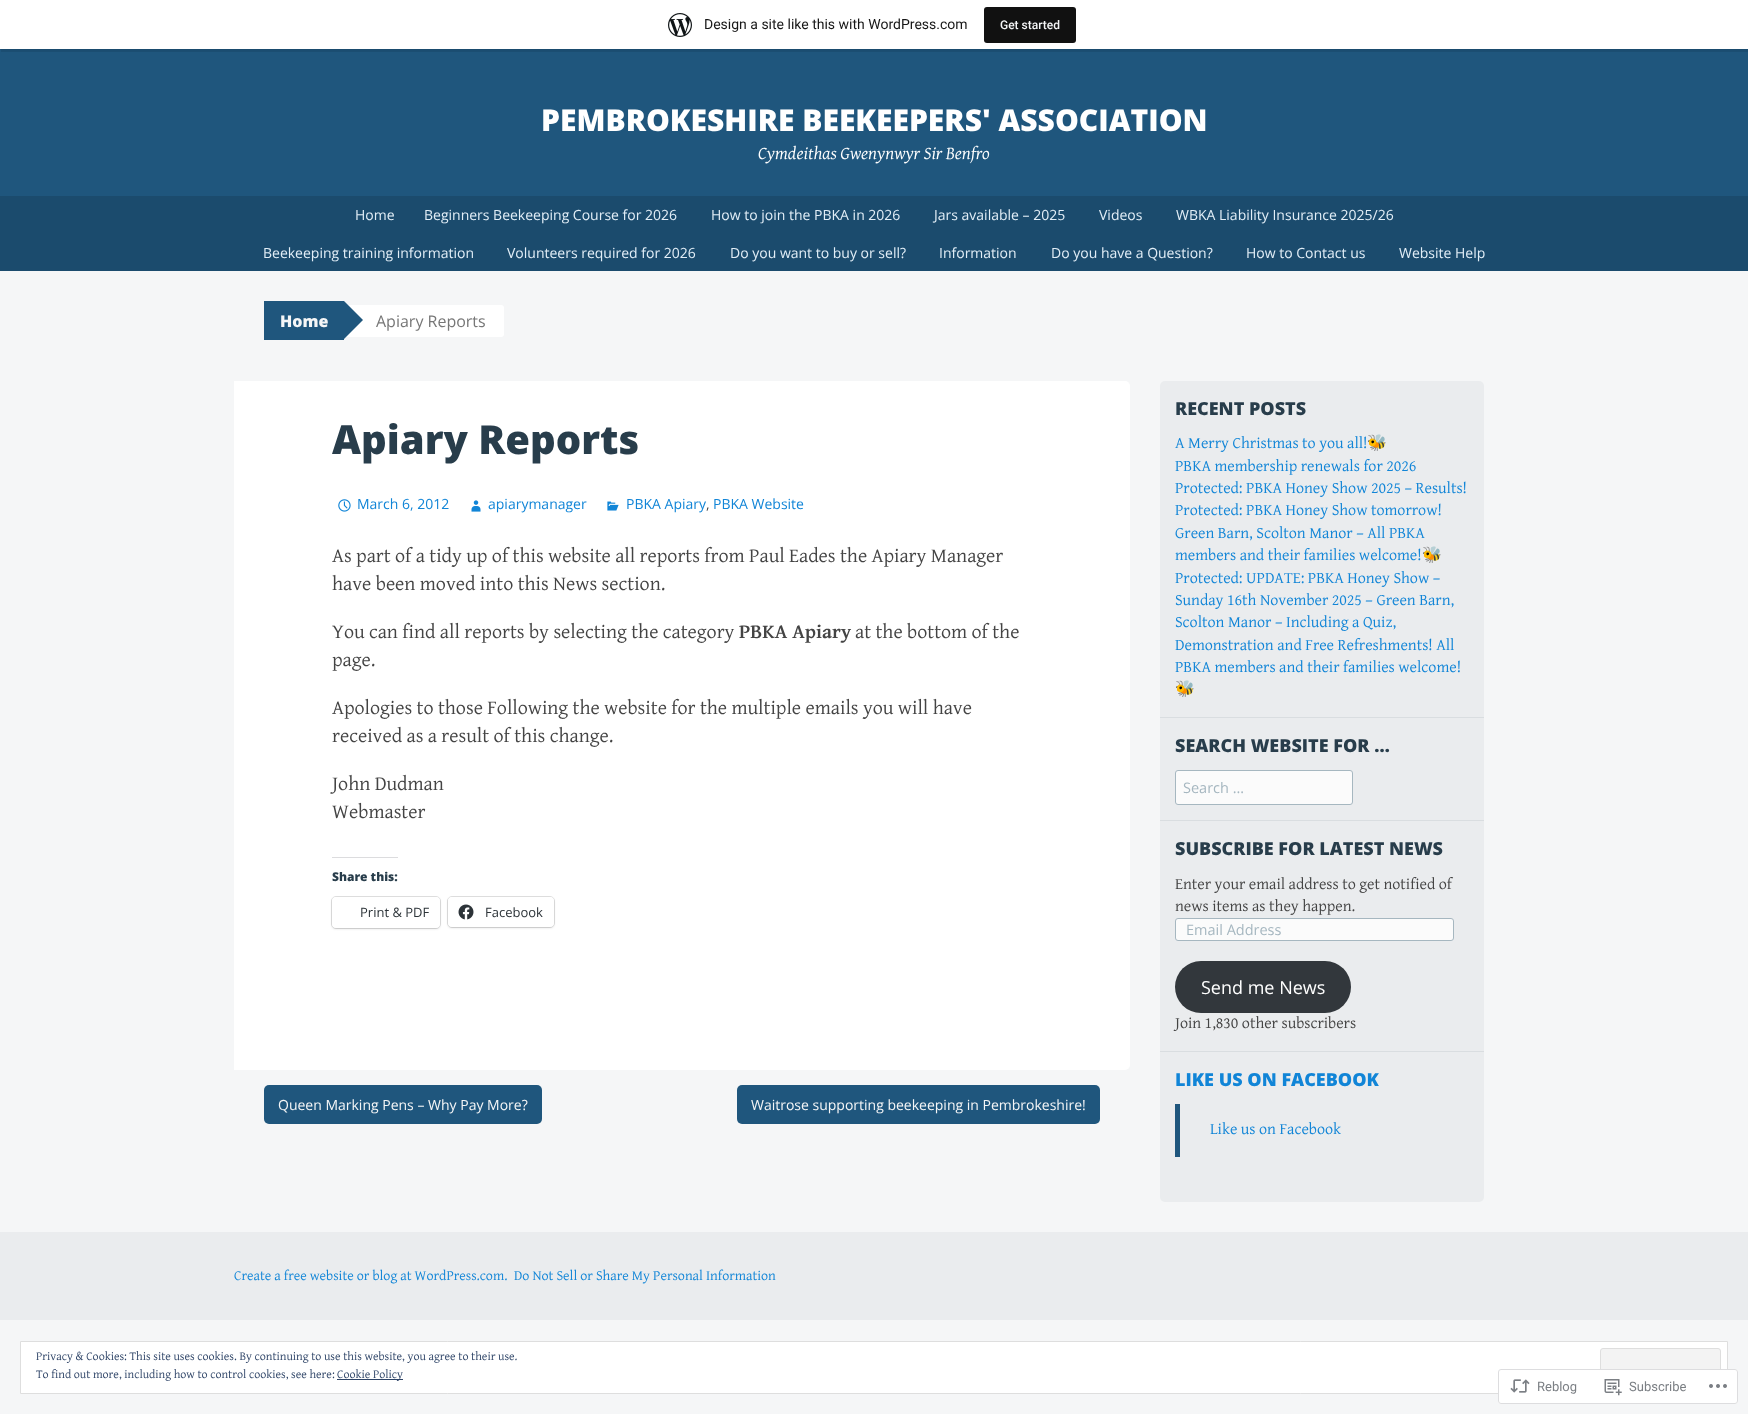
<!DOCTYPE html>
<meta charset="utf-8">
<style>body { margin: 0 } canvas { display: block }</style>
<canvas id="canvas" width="1748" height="1414"></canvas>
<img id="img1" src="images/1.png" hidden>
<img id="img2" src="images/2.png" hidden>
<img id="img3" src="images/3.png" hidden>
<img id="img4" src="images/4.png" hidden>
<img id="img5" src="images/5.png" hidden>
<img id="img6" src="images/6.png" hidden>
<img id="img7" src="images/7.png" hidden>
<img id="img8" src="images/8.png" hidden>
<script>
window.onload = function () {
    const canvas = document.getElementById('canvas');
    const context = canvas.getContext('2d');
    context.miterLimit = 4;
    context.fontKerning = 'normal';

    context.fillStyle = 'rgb(245, 246, 247)';
    context.fillRect(0, 0, 1748, 1414);
    context.fillStyle = 'rgb(31, 86, 125)';
    context.fillRect(0, 49, 1748, 147);
    context.fillStyle = 'rgba(0, 0, 0, 0.05)';
    context.filter = 'blur(1px)';
    context.beginPath();
    context.rect(0, 1, 1748, 49);
    context.fill();
    context.filter = 'none';
    context.fillStyle = 'rgba(0, 0, 0, 0.08)';
    context.beginPath();
    context.moveTo(1, 49);
    context.lineTo(1, 52);
    context.lineTo(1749, 52);
    context.lineTo(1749, 3);
    context.lineTo(1748, 3);
    context.lineTo(1748, 49);
    context.closePath();
    context.fill();
    context.fillStyle = 'rgb(255, 255, 255)';
    context.fillRect(0, 0, 1748, 49);
    context.drawImage(document.getElementById('img1'), 668, 13, 24, 24);
    context.fillStyle = 'rgb(17, 17, 17)';
    context.beginPath();
    context.roundRect(984, 7, 92, 36, 3);
    context.fill();
    context.fillStyle = 'rgb(27, 75, 109)';
    context.fillRect(0, 196, 1748, 75);
    context.fillStyle = 'rgb(31, 86, 125)';
    context.fillRect(264, 301, 80, 39);
    context.fillStyle = 'rgb(255, 255, 255)';
    context.fillRect(346, 305, 30, 32);
    context.fillStyle = 'rgb(31, 86, 125)';
    context.beginPath();
    context.moveTo(344, 339);
    context.lineTo(344, 301);
    context.lineTo(363, 320);
    context.closePath();
    context.fill();
    context.fillStyle = 'rgb(255, 255, 255)';
    context.beginPath();
    context.roundRect(376, 305, 128, 32, [0, 3, 3, 0]);
    context.fill();
    context.beginPath();
    context.roundRect(234, 381, 896, 689, [0, 5, 5, 0]);
    context.fill();
    context.drawImage(document.getElementById('img2'), 338, 499, 13, 13);
    context.drawImage(document.getElementById('img3'), 471, 500, 10, 12);
    context.drawImage(document.getElementById('img4'), 607, 501, 12, 10);
    context.fillStyle = 'rgb(220, 220, 222)';
    context.fillRect(332, 857, 66, 1);
    context.beginPath();
    context.roundRect(331.5, 896.5, 109, 32, 4.5);
    context.strokeStyle = 'rgb(224, 224, 224)';
    context.stroke();
    context.fillStyle = 'rgba(0, 0, 0, 0.12)';
    context.filter = 'blur(1px)';
    context.beginPath();
    context.roundRect(332, 898, 108, 31, 4);
    context.fill();
    context.filter = 'none';
    context.fillStyle = 'rgb(255, 255, 255)';
    context.beginPath();
    context.roundRect(332, 897, 108, 31, 4);
    context.fill();
    context.beginPath();
    context.roundRect(447.5, 896.5, 107, 31, 4.5);
    context.stroke();
    context.fillStyle = 'rgba(0, 0, 0, 0.12)';
    context.filter = 'blur(1px)';
    context.beginPath();
    context.roundRect(448, 898, 106, 30, 4);
    context.fill();
    context.filter = 'none';
    context.fillStyle = 'rgb(255, 255, 255)';
    context.beginPath();
    context.roundRect(448, 897, 106, 30, 4);
    context.fill();
    context.drawImage(document.getElementById('img5'), 458, 904, 16, 16);
    context.fillStyle = 'rgb(31, 86, 125)';
    context.beginPath();
    context.roundRect(264, 1085, 278, 39, 5);
    context.fill();
    context.beginPath();
    context.roundRect(737, 1085, 363, 39, 5);
    context.fill();
    context.fillStyle = 'rgb(234, 236, 238)';
    context.beginPath();
    context.roundRect(1160, 381, 324, 336, [5, 5, 0, 0]);
    context.fill();
    context.fillRect(1160, 718, 324, 102);
    context.fillStyle = 'rgb(217, 221, 224)';
    context.fillRect(1160, 717, 324, 1);
    context.fillStyle = 'rgb(251, 251, 251)';
    context.beginPath();
    context.roundRect(1175.5, 770.5, 177, 34, 2.5);
    context.fill();
    context.strokeStyle = 'rgb(166, 183, 192)';
    context.stroke();
    context.fillStyle = 'rgb(234, 236, 238)';
    context.fillRect(1160, 821, 324, 230);
    context.fillStyle = 'rgb(217, 221, 224)';
    context.fillRect(1160, 820, 324, 1);
    context.fillStyle = 'rgb(251, 251, 251)';
    context.beginPath();
    context.roundRect(1175.5, 918.5, 278, 22, 2.5);
    context.fill();
    context.stroke();
    context.fillStyle = 'rgb(50, 55, 60)';
    context.beginPath();
    context.roundRect(1175, 961, 176, 52, 26);
    context.fill();
    context.fillStyle = 'rgb(234, 236, 238)';
    context.beginPath();
    context.roundRect(1160, 1052, 324, 150, [0, 0, 5, 5]);
    context.fill();
    context.fillStyle = 'rgb(217, 221, 224)';
    context.fillRect(1160, 1051, 324, 1);
    context.fillStyle = 'rgb(31, 86, 125)';
    context.fillRect(1175, 1104, 5, 53);
    context.fillStyle = 'rgb(234, 236, 238)';
    context.fillRect(0, 1232, 1748, 88);
    context.fillStyle = 'rgb(255, 255, 255)';
    context.beginPath();
    context.rect(20.5, 1341.5, 1707, 52);
    context.fill();
    context.strokeStyle = 'rgb(222, 222, 222)';
    context.stroke();
    context.fillStyle = 'rgb(243, 243, 243)';
    context.beginPath();
    context.roundRect(1600.5, 1348.5, 120, 38, 2.5);
    context.fill();
    context.stroke();
    context.fillStyle = 'rgb(46, 68, 103)';
    context.fillRect(337, 1379, 66, 1);
    context.fillStyle = 'rgba(255, 255, 255, 0.98)';
    context.beginPath();
    context.roundRect(1498, 1369, 240, 35, 3);
    context.fill();
    context.beginPath();
    context.roundRect(1498.5, 1369.5, 239, 34, 2.5);
    context.strokeStyle = 'rgba(220, 220, 222, 0.98)';
    context.stroke();
    context.drawImage(document.getElementById('img6'), 1510, 1379, 20, 14);
    context.drawImage(document.getElementById('img7'), 1604, 1379, 18, 17);
    context.drawImage(document.getElementById('img8'), 1709, 1384, 18, 4);
    context.font = '14px Roboto';
    context.fillStyle = 'rgb(23, 23, 23)';
    context.fillText('Design a site like this with WordPress.com', 704, 29);
    context.font = '500 12px Roboto';
    context.fillStyle = 'rgb(245, 246, 247)';
    context.fillText('Get started', 1000, 29);
    context.font = '800 30px Open Sans';
    context.fillStyle = 'rgb(255, 255, 255)';
    context.fillText('PEMBROKESHIRE BEEKEEPERS\' ASSOCIATION', 541, 131);
    context.font = 'italic 18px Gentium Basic';
    context.fillText('Cymdeithas Gwenynwyr Sir Benfro', 758, 159);
    context.font = '14px Open Sans';
    context.fillStyle = 'rgb(226, 238, 247)';
    context.fillText('Home', 355, 220);
    context.fillText('Beginners Beekeeping Course for 2026', 424, 220);
    context.fillText('How to join the PBKA in 2026', 711, 220);
    context.fillText('Jars available – 2025', 934, 220);
    context.fillText('Videos', 1099, 220);
    context.fillText('WBKA Liability Insurance 2025/26', 1176, 220);
    context.fillText('Beekeeping training information', 263, 258);
    context.fillText('Volunteers required for 2026', 507, 258);
    context.fillText('Do you want to buy or sell?', 730, 258);
    context.fillText('Information', 939, 258);
    context.fillText('Do you have a Question?', 1051, 258);
    context.fillText('How to Contact us', 1246, 258);
    context.fillText('Website Help', 1399, 258);
    context.font = '800 16px Open Sans';
    context.fillStyle = 'rgb(245, 246, 247)';
    context.fillText('Home', 280, 327);
    context.font = '16px Open Sans';
    context.fillStyle = 'rgb(119, 119, 119)';
    context.fillText('Apiary Reports', 376, 327);
    context.font = '800 40px Open Sans';
    context.fillStyle = 'rgb(40, 61, 75)';
    context.fillText('Apiary Reports', 332, 454);
    context.font = '14px Open Sans';
    context.fillStyle = 'rgb(17, 133, 215)';
    context.fillText('March 6, 2012', 357, 509);
    context.fillText('apiarymanager', 488, 509);
    context.fillText('PBKA Apiary', 626, 509);
    context.fillStyle = 'rgb(68, 68, 68)';
    context.fillText(',', 706, 509);
    context.fillStyle = 'rgb(17, 133, 215)';
    context.fillText('PBKA Website', 713, 509);
    context.font = '20px Gentium Basic';
    context.fillStyle = 'rgb(68, 68, 68)';
    context.fillText('As part of a tidy up of this website all reports from Paul Eades the Apiary Manager', 332, 562);
    context.fillText('have been moved into this News section.', 332, 590);
    context.fillText('You can find all reports by selecting the category', 332, 638);
    context.font = 'bold 20px Gentium Basic';
    context.fillText('PBKA Apiary', 739, 638);
    context.font = '20px Gentium Basic';
    context.fillText('at the bottom of the', 855, 638);
    context.fillText('page.', 332, 666);
    context.fillText('Apologies to those Following the website for the multiple emails you will have', 332, 714);
    context.fillText('received as a result of this change.', 332, 742);
    context.fillText('John Dudman', 332, 790);
    context.fillText('Webmaster', 332, 818);
    context.font = '800 12px Open Sans';
    context.fillStyle = 'rgb(40, 61, 75)';
    context.fillText('Share this:', 332, 881);
    context.font = '13px Open Sans';
    context.fillStyle = 'rgb(44, 51, 56)';
    context.fillText('Print & PDF', 360, 917);
    context.fillText('Facebook', 485, 917);
    context.font = '14px Open Sans';
    context.fillStyle = 'rgb(245, 246, 247)';
    context.fillText('Queen Marking Pens – Why Pay More?', 278, 1110);
    context.fillText('Waitrose supporting beekeeping in Pembrokeshire!', 751, 1110);
    context.font = '800 18px Open Sans';
    context.fillStyle = 'rgb(40, 61, 75)';
    context.fillText('RECENT POSTS', 1175, 415);
    context.font = '16px Gentium Basic';
    context.fillStyle = 'rgb(17, 133, 215)';
    context.fillText('A Merry Christmas to you all!', 1175, 448);
    context.font = '16px Noto Color Emoji';
    context.fillText('🐝', 1367, 448);
    context.font = '16px Gentium Basic';
    context.fillText('PBKA membership renewals for 2026', 1175, 471);
    context.fillText('Protected: PBKA Honey Show 2025 – Results!', 1175, 493);
    context.fillText('Protected: PBKA Honey Show tomorrow!', 1175, 515);
    context.fillText('Green Barn, Scolton Manor – All PBKA', 1175, 538);
    context.fillText('members and their families welcome!', 1175, 560);
    context.font = '16px Noto Color Emoji';
    context.fillText('🐝', 1422, 560);
    context.font = '16px Gentium Basic';
    context.fillText('Protected: UPDATE: PBKA Honey Show –', 1175, 583);
    context.fillText('Sunday 16th November 2025 – Green Barn,', 1175, 605);
    context.fillText('Scolton Manor – Including a Quiz,', 1175, 627);
    context.fillText('Demonstration and Free Refreshments! All', 1175, 650);
    context.fillText('PBKA members and their families welcome!', 1175, 672);
    context.font = '16px Noto Color Emoji';
    context.fillText('🐝', 1175, 694);
    context.font = '800 18px Open Sans';
    context.fillStyle = 'rgb(40, 61, 75)';
    context.fillText('SEARCH WEBSITE FOR …', 1175, 752);
    context.font = '14.5px Open Sans';
    context.fillStyle = 'rgb(166, 183, 192)';
    context.fillText('Search …', 1183, 793);
    context.font = '800 18px Open Sans';
    context.fillStyle = 'rgb(40, 61, 75)';
    context.fillText('SUBSCRIBE FOR LATEST NEWS', 1175, 855);
    context.font = '16px Gentium Basic';
    context.fillStyle = 'rgb(68, 68, 68)';
    context.fillText('Enter your email address to get notified of', 1175, 889);
    context.fillText('news items as they happen.', 1175, 911);
    context.font = '14.5px Open Sans';
    context.fillStyle = 'rgb(166, 183, 192)';
    context.fillText('Email Address', 1186, 935);
    context.font = '18px Open Sans';
    context.fillStyle = 'rgb(255, 255, 255)';
    context.fillText('Send me News', 1201, 994);
    context.font = '16px Gentium Basic';
    context.fillStyle = 'rgb(68, 68, 68)';
    context.fillText('Join 1,830 other subscribers', 1175, 1028);
    context.font = '800 18px Open Sans';
    context.fillStyle = 'rgb(17, 133, 215)';
    context.fillText('LIKE US ON FACEBOOK', 1175, 1086);
    context.font = '16px Gentium Basic';
    context.fillText('Like us on Facebook', 1210, 1134);
    context.font = '14px Gentium Basic';
    context.fillText('Create a free website or blog at WordPress.com.', 234, 1280);
    context.fillText('Do Not Sell or Share My Personal Information', 514, 1280);
    context.font = '12px Gentium Basic';
    context.fillStyle = 'rgb(46, 68, 103)';
    context.fillText('Privacy & Cookies: This site uses cookies. By continuing to use this website, you agree to their use.', 36, 1360);
    context.fillText('To find out more, including how to control cookies, see here:', 36, 1378);
    context.fillText('Cookie Policy', 337, 1378);
    context.font = '13px Roboto';
    context.fillStyle = 'rgb(123, 127, 132)';
    context.fillText('Reblog', 1537, 1391);
    context.fillText('Subscribe', 1629, 1391);
};
</script>
